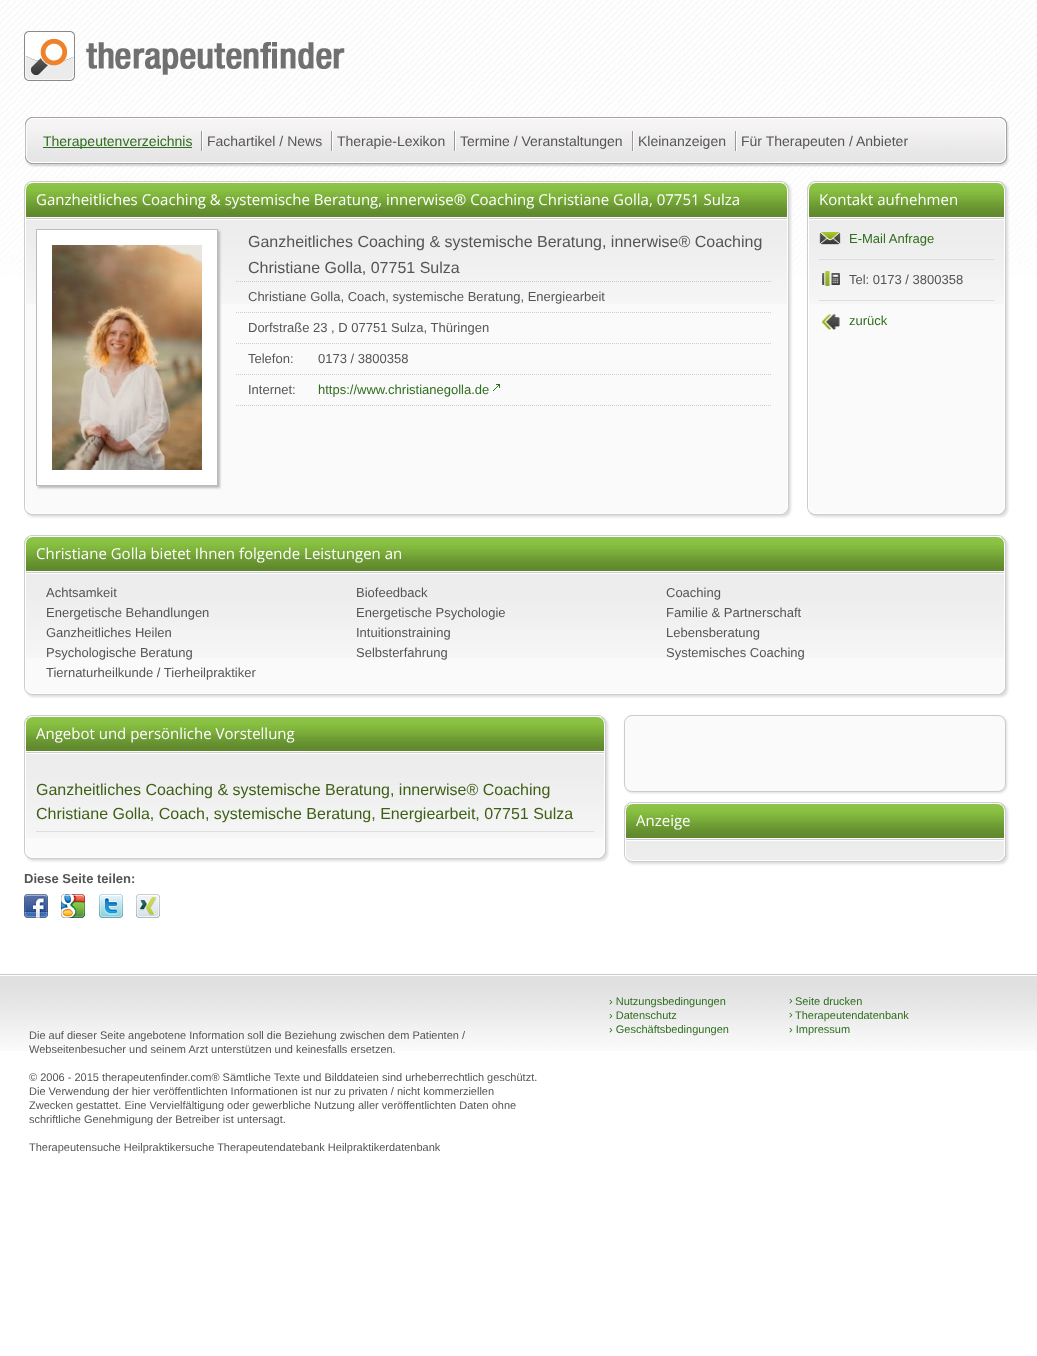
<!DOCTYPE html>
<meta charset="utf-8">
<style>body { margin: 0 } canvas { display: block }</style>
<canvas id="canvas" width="1037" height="1356"></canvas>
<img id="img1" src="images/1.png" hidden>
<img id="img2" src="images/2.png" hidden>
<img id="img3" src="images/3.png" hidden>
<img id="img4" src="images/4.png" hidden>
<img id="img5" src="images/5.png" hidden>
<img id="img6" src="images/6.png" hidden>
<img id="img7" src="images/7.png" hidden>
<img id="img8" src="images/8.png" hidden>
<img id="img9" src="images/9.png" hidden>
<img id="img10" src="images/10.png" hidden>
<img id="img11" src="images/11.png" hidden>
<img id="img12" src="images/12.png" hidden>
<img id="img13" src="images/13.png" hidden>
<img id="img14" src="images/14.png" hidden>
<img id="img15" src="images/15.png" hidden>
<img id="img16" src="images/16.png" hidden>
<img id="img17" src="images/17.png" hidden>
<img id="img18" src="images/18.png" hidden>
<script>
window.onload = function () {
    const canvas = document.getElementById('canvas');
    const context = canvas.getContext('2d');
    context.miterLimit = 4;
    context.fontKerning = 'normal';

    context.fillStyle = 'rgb(255, 255, 255)';
    context.fillRect(0, 0, 1037, 1356);
    context.drawImage(document.getElementById('img1'), 0, 0, 1037, 276);
    context.drawImage(document.getElementById('img2'), 24, 31, 321, 50);
    context.drawImage(document.getElementById('img3'), 25, 117, 984, 50);
    context.fillStyle = 'rgb(153, 153, 153)';
    context.fillRect(201, 131, 1, 20);
    context.fillStyle = 'rgb(47, 110, 30)';
    context.fillRect(43, 147, 149, 1);
    context.fillStyle = 'rgb(153, 153, 153)';
    context.fillRect(331, 131, 1, 20);
    context.fillStyle = 'rgb(255, 255, 255)';
    context.fillRect(202, 131, 1, 20);
    context.fillStyle = 'rgb(153, 153, 153)';
    context.fillRect(454, 131, 1, 20);
    context.fillStyle = 'rgb(255, 255, 255)';
    context.fillRect(332, 131, 1, 20);
    context.fillStyle = 'rgb(153, 153, 153)';
    context.fillRect(632, 131, 1, 20);
    context.fillStyle = 'rgb(255, 255, 255)';
    context.fillRect(455, 131, 1, 20);
    context.fillStyle = 'rgb(153, 153, 153)';
    context.fillRect(735, 131, 1, 20);
    context.fillStyle = 'rgb(255, 255, 255)';
    context.fillRect(633, 131, 1, 20);
    context.fillRect(736, 131, 1, 20);
    context.fillStyle = 'rgb(221, 221, 221)';
    context.filter = 'blur(1px)';
    context.beginPath();
    context.roundRect(26, 183, 765, 334, 8);
    context.fill();
    context.filter = 'none';
    context.beginPath();
    context.roundRect(24.5, 181.5, 764, 333, 7.5);
    context.strokeStyle = 'rgb(204, 204, 204)';
    context.stroke();
    context.fillStyle = 'rgb(250, 250, 250)';
    context.beginPath();
    context.roundRect(25, 182, 763, 332, 8);
    context.fill();
    context.drawImage(document.getElementById('img4'), 25, 183, 763, 121);
    context.beginPath();
    context.roundRect(25.5, 182.5, 762, 331, 7.5);
    context.strokeStyle = 'rgb(255, 255, 255)';
    context.stroke();
    context.fillStyle = 'rgb(187, 187, 187)';
    context.filter = 'blur(1px)';
    context.beginPath();
    context.rect(38, 231, 182, 257);
    context.fill();
    context.filter = 'none';
    context.fillStyle = 'rgb(255, 255, 255)';
    context.beginPath();
    context.rect(36.5, 229.5, 181, 256);
    context.fill();
    context.strokeStyle = 'rgb(187, 187, 187)';
    context.stroke();
    context.drawImage(document.getElementById('img5'), 52, 245, 150, 225);
    context.beginPath();
    context.moveTo(236, 281.5);
    context.lineTo(772, 281.5);
    context.strokeStyle = 'rgb(204, 204, 204)';
    context.setLineDash([1, 1]);
    context.stroke();
    context.beginPath();
    context.moveTo(236, 312.5);
    context.lineTo(772, 312.5);
    context.stroke();
    context.beginPath();
    context.moveTo(236, 343.5);
    context.lineTo(772, 343.5);
    context.stroke();
    context.beginPath();
    context.moveTo(236, 374.5);
    context.lineTo(772, 374.5);
    context.stroke();
    context.beginPath();
    context.moveTo(236, 405.5);
    context.lineTo(772, 405.5);
    context.stroke();
    context.drawImage(document.getElementById('img6'), 493, 384, 7, 7);
    context.fillStyle = 'rgb(221, 221, 221)';
    context.filter = 'blur(1px)';
    context.beginPath();
    context.roundRect(809, 183, 199, 334, 8);
    context.fill();
    context.filter = 'none';
    context.beginPath();
    context.roundRect(807.5, 181.5, 198, 333, 7.5);
    context.setLineDash([]);
    context.stroke();
    context.fillStyle = 'rgb(250, 250, 250)';
    context.beginPath();
    context.roundRect(808, 182, 197, 332, 8);
    context.fill();
    context.drawImage(document.getElementById('img7'), 808, 183, 197, 121);
    context.beginPath();
    context.roundRect(808.5, 182.5, 196, 331, 7.5);
    context.strokeStyle = 'rgb(255, 255, 255)';
    context.stroke();
    context.drawImage(document.getElementById('img8'), 819, 232, 22, 13);
    context.fillStyle = 'rgb(221, 221, 221)';
    context.fillRect(819, 259, 175, 1);
    context.drawImage(document.getElementById('img9'), 822, 271, 18, 15);
    context.fillRect(819, 300, 175, 1);
    context.drawImage(document.getElementById('img10'), 822, 314, 18, 16);
    context.filter = 'blur(1px)';
    context.beginPath();
    context.roundRect(26, 537, 982, 160, 8);
    context.fill();
    context.filter = 'none';
    context.beginPath();
    context.roundRect(24.5, 535.5, 981, 159, 7.5);
    context.strokeStyle = 'rgb(204, 204, 204)';
    context.stroke();
    context.fillStyle = 'rgb(250, 250, 250)';
    context.beginPath();
    context.roundRect(25, 536, 980, 158, 8);
    context.fill();
    context.drawImage(document.getElementById('img11'), 25, 537, 980, 121);
    context.beginPath();
    context.roundRect(25.5, 536.5, 979, 157, 7.5);
    context.strokeStyle = 'rgb(255, 255, 255)';
    context.stroke();
    context.fillStyle = 'rgb(221, 221, 221)';
    context.filter = 'blur(1px)';
    context.beginPath();
    context.roundRect(26, 717, 582, 144, 8);
    context.fill();
    context.filter = 'none';
    context.beginPath();
    context.roundRect(24.5, 715.5, 581, 143, 7.5);
    context.strokeStyle = 'rgb(204, 204, 204)';
    context.stroke();
    context.fillStyle = 'rgb(250, 250, 250)';
    context.beginPath();
    context.roundRect(25, 716, 580, 142, 8);
    context.fill();
    context.drawImage(document.getElementById('img12'), 25, 717, 580, 121);
    context.beginPath();
    context.roundRect(25.5, 716.5, 579, 141, 7.5);
    context.strokeStyle = 'rgb(255, 255, 255)';
    context.stroke();
    context.fillStyle = 'rgb(221, 221, 221)';
    context.fillRect(36, 831, 558, 1);
    context.drawImage(document.getElementById('img13'), 24, 894, 24, 24);
    context.drawImage(document.getElementById('img14'), 61, 894, 24, 24);
    context.drawImage(document.getElementById('img15'), 99, 894, 24, 24);
    context.drawImage(document.getElementById('img16'), 136, 894, 24, 24);
    context.filter = 'blur(1px)';
    context.beginPath();
    context.roundRect(625, 716, 382, 77, 8);
    context.fill();
    context.filter = 'none';
    context.fillStyle = 'rgb(250, 250, 250)';
    context.beginPath();
    context.roundRect(624.5, 715.5, 381, 76, 7.5);
    context.fill();
    context.strokeStyle = 'rgb(204, 204, 204)';
    context.stroke();
    context.fillStyle = 'rgb(221, 221, 221)';
    context.filter = 'blur(1px)';
    context.beginPath();
    context.roundRect(626, 804, 382, 60, 8);
    context.fill();
    context.filter = 'none';
    context.beginPath();
    context.roundRect(624.5, 802.5, 381, 59, 7.5);
    context.stroke();
    context.drawImage(document.getElementById('img17'), 625, 804, 380, 57);
    context.beginPath();
    context.roundRect(625.5, 803.5, 379, 57, 7.5);
    context.strokeStyle = 'rgb(255, 255, 255)';
    context.stroke();
    context.drawImage(document.getElementById('img18'), 0, 974, 1037, 77);
    context.font = '14px Liberation Sans';
    context.fillStyle = 'rgb(47, 110, 30)';
    context.fillText('Therapeutenverzeichnis', 43, 146);
    context.fillStyle = 'rgb(85, 85, 85)';
    context.fillText('Fachartikel / News', 207, 146);
    context.fillText('Therapie-Lexikon', 337, 146);
    context.fillText('Termine / Veranstaltungen', 460, 146);
    context.fillText('Kleinanzeigen', 638, 146);
    context.fillText('Für Therapeuten / Anbieter', 741, 146);
    context.font = '15px Open Sans';
    context.fillStyle = 'rgb(255, 255, 255)';
    context.fillText('Ganzheitliches Coaching & systemische Beratung, innerwise® Coaching Christiane Golla, 07751 Sulza', 36, 205);
    context.font = '16px Liberation Sans';
    context.fillStyle = 'rgb(85, 85, 85)';
    context.fillText('Ganzheitliches Coaching & systemische Beratung, innerwise® Coaching', 248, 247);
    context.fillText('Christiane Golla, 07751 Sulza', 248, 273);
    context.font = '13px Liberation Sans';
    context.fillText('Christiane Golla, Coach, systemische Beratung, Energiearbeit', 248, 301);
    context.fillText('Dorfstraße 23 , D 07751 Sulza, Thüringen', 248, 332);
    context.fillText('Telefon:', 248, 363);
    context.fillText('0173 / 3800358', 318, 363);
    context.fillText('Internet:', 248, 394);
    context.fillStyle = 'rgb(47, 110, 30)';
    context.fillText('https://www.christianegolla.de', 318, 394);
    context.font = '15px Open Sans';
    context.fillStyle = 'rgb(255, 255, 255)';
    context.fillText('Kontakt aufnehmen', 819, 205);
    context.font = '13px Liberation Sans';
    context.fillStyle = 'rgb(47, 110, 30)';
    context.fillText('E-Mail Anfrage', 849, 243);
    context.fillStyle = 'rgb(85, 85, 85)';
    context.fillText('Tel: 0173 / 3800358', 849, 284);
    context.fillStyle = 'rgb(47, 110, 30)';
    context.fillText('zurück', 849, 325);
    context.font = '15px Open Sans';
    context.fillStyle = 'rgb(255, 255, 255)';
    context.fillText('Christiane Golla bietet Ihnen folgende Leistungen an', 36, 559);
    context.font = '13px Liberation Sans';
    context.fillStyle = 'rgb(85, 85, 85)';
    context.fillText('Achtsamkeit', 46, 597);
    context.fillText('Biofeedback', 356, 597);
    context.fillText('Coaching', 666, 597);
    context.fillText('Energetische Behandlungen', 46, 617);
    context.fillText('Energetische Psychologie', 356, 617);
    context.fillText('Familie & Partnerschaft', 666, 617);
    context.fillText('Ganzheitliches Heilen', 46, 637);
    context.fillText('Intuitionstraining', 356, 637);
    context.fillText('Lebensberatung', 666, 637);
    context.fillText('Psychologische Beratung', 46, 657);
    context.fillText('Selbsterfahrung', 356, 657);
    context.fillText('Systemisches Coaching', 666, 657);
    context.fillText('Tiernaturheilkunde / Tierheilpraktiker', 46, 677);
    context.font = '15px Open Sans';
    context.fillStyle = 'rgb(255, 255, 255)';
    context.fillText('Angebot und persönliche Vorstellung', 36, 739);
    context.font = '16px Liberation Sans';
    context.fillStyle = 'rgb(63, 95, 22)';
    context.fillText('Ganzheitliches Coaching & systemische Beratung, innerwise® Coaching', 36, 795);
    context.fillText('Christiane Golla, Coach, systemische Beratung, Energiearbeit, 07751 Sulza', 36, 819);
    context.font = 'bold 13px Liberation Sans';
    context.fillStyle = 'rgb(85, 85, 85)';
    context.fillText('Diese Seite teilen:', 24, 883);
    context.font = '15px Open Sans';
    context.fillStyle = 'rgb(255, 255, 255)';
    context.fillText('Anzeige', 636, 826);
    context.font = '11px Liberation Sans';
    context.fillStyle = 'rgb(47, 110, 30)';
    context.fillText('› Nutzungsbedingungen', 609, 1005);
    context.fillText('› Datenschutz', 609, 1019);
    context.fillText('› Geschäftsbedingungen', 609, 1033);
    context.fillText('›', 789, 1004);
    context.fillText('Seite drucken', 795, 1005);
    context.fillText('›', 789, 1018);
    context.fillText('Therapeutendatenbank', 795, 1019);
    context.fillText('› Impressum', 789, 1033);
    context.fillStyle = 'rgb(85, 85, 85)';
    context.fillText('Die auf dieser Seite angebotene Information soll die Beziehung zwischen dem Patienten /', 29, 1039);
    context.fillText('Webseitenbesucher und seinem Arzt unterstützen und keinesfalls ersetzen.', 29, 1053);
    context.fillText('© 2006 - 2015 therapeutenfinder.com® Sämtliche Texte und Bilddateien sind urheberrechtlich geschützt.', 29, 1081);
    context.fillText('Die Verwendung der hier veröffentlichten Informationen ist nur zu privaten / nicht kommerziellen', 29, 1095);
    context.fillText('Zwecken gestattet. Eine Vervielfältigung oder gewerbliche Nutzung aller veröffentlichten Daten ohne', 29, 1109);
    context.fillText('schriftliche Genehmigung der Betreiber ist untersagt.', 29, 1123);
    context.fillText('Therapeutensuche Heilpraktikersuche Therapeutendatebank Heilpraktikerdatenbank', 29, 1151);
};
</script>
